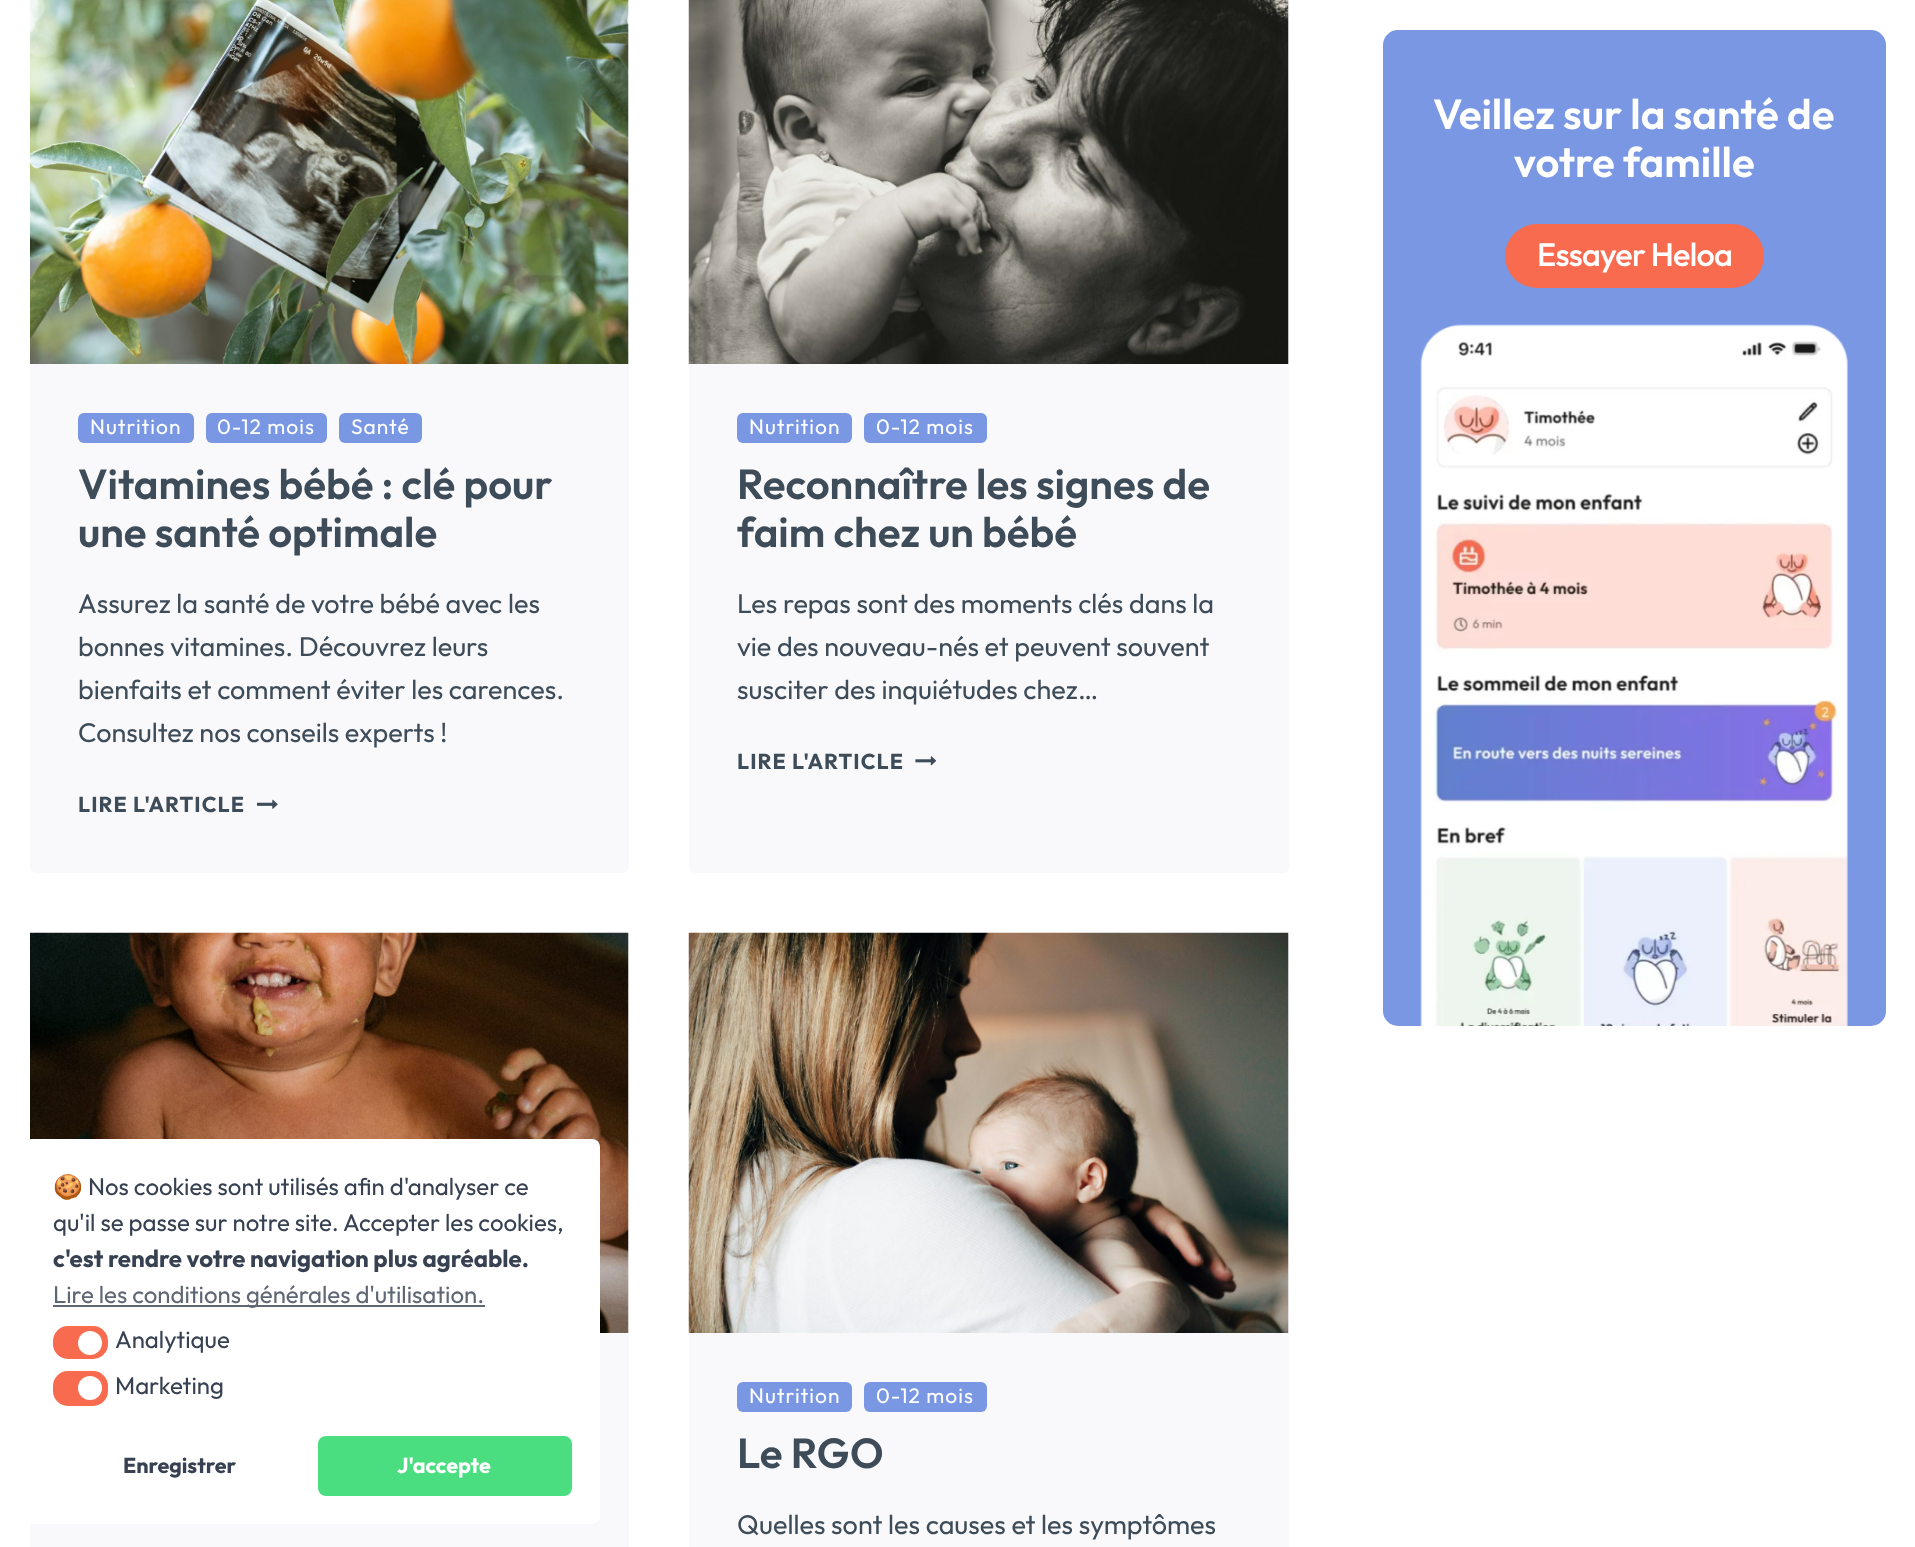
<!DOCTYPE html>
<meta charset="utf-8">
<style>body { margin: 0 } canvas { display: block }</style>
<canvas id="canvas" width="1915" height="1547"></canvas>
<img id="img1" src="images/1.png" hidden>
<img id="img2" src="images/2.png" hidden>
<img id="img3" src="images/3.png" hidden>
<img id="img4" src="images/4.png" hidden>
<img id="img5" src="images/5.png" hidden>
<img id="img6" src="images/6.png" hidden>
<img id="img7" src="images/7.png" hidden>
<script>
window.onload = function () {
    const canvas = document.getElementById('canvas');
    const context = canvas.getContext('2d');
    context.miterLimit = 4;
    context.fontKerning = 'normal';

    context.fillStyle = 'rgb(255, 255, 255)';
    context.fillRect(0, 0, 1915, 1547);
    context.fillStyle = 'rgb(121, 151, 227)';
    context.beginPath();
    context.roundRect(1383, 30, 503, 996, 15);
    context.fill();
    context.fillStyle = 'rgb(248, 107, 79)';
    context.beginPath();
    context.roundRect(1505, 224, 259, 64, 32);
    context.fill();
    context.drawImage(document.getElementById('img1'), 1420, 324, 428, 702);
    context.fillStyle = 'rgb(249, 249, 251)';
    context.beginPath();
    context.roundRect(30, -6, 599, 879, 6);
    context.fill();
    context.drawImage(document.getElementById('img2'), 30, 0, 599, 364);
    context.fillStyle = 'rgb(121, 151, 227)';
    context.beginPath();
    context.roundRect(78, 413, 116, 30, 6);
    context.fill();
    context.beginPath();
    context.roundRect(206, 413, 121, 30, 6);
    context.fill();
    context.beginPath();
    context.roundRect(339, 413, 83, 30, 6);
    context.fill();
    context.drawImage(document.getElementById('img3'), 257, 799, 21, 10);
    context.fillStyle = 'rgb(249, 249, 251)';
    context.beginPath();
    context.roundRect(689, -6, 600, 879, 6);
    context.fill();
    context.drawImage(document.getElementById('img4'), 688, 0, 601, 364);
    context.fillStyle = 'rgb(121, 151, 227)';
    context.beginPath();
    context.roundRect(737, 413, 115, 30, 6);
    context.fill();
    context.beginPath();
    context.roundRect(864, 413, 123, 30, 6);
    context.fill();
    context.drawImage(document.getElementById('img5'), 915, 756, 21, 10);
    context.fillStyle = 'rgb(249, 249, 251)';
    context.beginPath();
    context.roundRect(30, 933, 599, 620, 6);
    context.fill();
    context.drawImage(document.getElementById('img6'), 30, 932, 599, 401);
    context.beginPath();
    context.roundRect(689, 933, 600, 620, 6);
    context.fill();
    context.drawImage(document.getElementById('img7'), 688, 932, 601, 401);
    context.fillStyle = 'rgb(121, 151, 227)';
    context.beginPath();
    context.roundRect(737, 1382, 115, 30, 6);
    context.fill();
    context.beginPath();
    context.roundRect(864, 1382, 123, 30, 6);
    context.fill();
    context.fillStyle = 'rgb(255, 255, 255)';
    context.beginPath();
    context.roundRect(24, 1139, 576, 385, 8);
    context.fill();
    context.fillStyle = 'rgb(95, 103, 116)';
    context.fillRect(53, 1305, 432, 2);
    context.fillStyle = 'rgb(248, 107, 79)';
    context.beginPath();
    context.roundRect(53, 1326, 55, 33, 15);
    context.fill();
    context.fillStyle = 'rgb(255, 255, 255)';
    context.beginPath();
    context.arc(90, 1343, 12, 0, 2 * Math.PI);
    context.fill();
    context.fillStyle = 'rgb(248, 107, 79)';
    context.beginPath();
    context.roundRect(53, 1371, 55, 35, 15);
    context.fill();
    context.fillStyle = 'rgb(255, 255, 255)';
    context.beginPath();
    context.arc(90, 1388, 12, 0, 2 * Math.PI);
    context.fill();
    context.fillStyle = 'rgb(74, 222, 129)';
    context.beginPath();
    context.roundRect(318, 1436, 254, 60, 8);
    context.fill();
    context.font = '100 42px Outfit';
    context.fillStyle = 'rgb(255, 255, 255)';
    context.fillText('Veillez sur la santé de', 1433, 129);
    context.fillText('votre famille', 1514, 177);
    context.letterSpacing = '-0.75px';
    context.font = '500 32.5px Outfit';
    context.fillText('Essayer Heloa', 1537, 266);
    context.letterSpacing = '1px';
    context.font = '21px Outfit';
    context.fillText('Nutrition', 90, 434);
    context.fillText('0-12 mois', 217, 434);
    context.fillText('Santé', 351, 434);
    context.letterSpacing = '0px';
    context.font = '100 42px Outfit';
    context.fillStyle = 'rgb(62, 76, 89)';
    context.fillText('Vitamines bébé : clé pour', 78, 499);
    context.fillText('une santé optimale', 78, 547);
    context.font = '27px Outfit';
    context.fillText('Assurez la santé de votre bébé avec les', 78, 613);
    context.fillText('bonnes vitamines. Découvrez leurs', 78, 656);
    context.fillText('bienfaits et comment éviter les carences.', 78, 699);
    context.fillText('Consultez nos conseils experts !', 78, 742);
    context.letterSpacing = '1.1px';
    context.font = 'bold 21.5px Outfit';
    context.fillText('LIRE L\'ARTICLE', 78, 812);
    context.letterSpacing = '1px';
    context.font = '21px Outfit';
    context.fillStyle = 'rgb(255, 255, 255)';
    context.fillText('Nutrition', 749, 434);
    context.fillText('0-12 mois', 876, 434);
    context.letterSpacing = '0px';
    context.font = '100 42px Outfit';
    context.fillStyle = 'rgb(62, 76, 89)';
    context.fillText('Reconnaître les signes de', 737, 499);
    context.fillText('faim chez un bébé', 737, 547);
    context.font = '27px Outfit';
    context.fillText('Les repas sont des moments clés dans la', 737, 613);
    context.fillText('vie des nouveau-nés et peuvent souvent', 737, 656);
    context.fillText('susciter des inquiétudes chez…', 737, 699);
    context.letterSpacing = '1.1px';
    context.font = 'bold 21.5px Outfit';
    context.fillText('LIRE L\'ARTICLE', 737, 769);
    context.letterSpacing = '1px';
    context.font = '21px Outfit';
    context.fillStyle = 'rgb(255, 255, 255)';
    context.fillText('Nutrition', 749, 1403);
    context.fillText('0-12 mois', 876, 1403);
    context.letterSpacing = '0px';
    context.font = '100 42px Outfit';
    context.fillStyle = 'rgb(62, 76, 89)';
    context.fillText('Le RGO', 737, 1468);
    context.font = '27px Outfit';
    context.fillText('Quelles sont les causes et les symptômes', 737, 1534);
    context.font = '24px Noto Color Emoji';
    context.fillStyle = 'rgb(55, 65, 81)';
    context.fillText('🍪', 53, 1195);
    context.font = '24px Outfit';
    context.fillText('Nos cookies sont utilisés afin d\'analyser ce', 88, 1195);
    context.fillText('qu\'il se passe sur notre site. Accepter les cookies,', 53, 1231);
    context.font = 'bold 24px Outfit';
    context.fillText('c\'est rendre votre navigation plus agréable.', 53, 1267);
    context.font = '24px Outfit';
    context.fillStyle = 'rgb(95, 103, 116)';
    context.fillText('Lire les conditions générales d\'utilisation.', 53, 1303);
    context.fillStyle = 'rgb(55, 65, 81)';
    context.fillText('Analytique', 115, 1348);
    context.fillText('Marketing', 115, 1394);
    context.font = 'bold 21.5px Outfit';
    context.fillText('Enregistrer', 123, 1473);
    context.fillStyle = 'rgb(255, 255, 255)';
    context.fillText('J\'accepte', 397, 1473);
};
</script>
